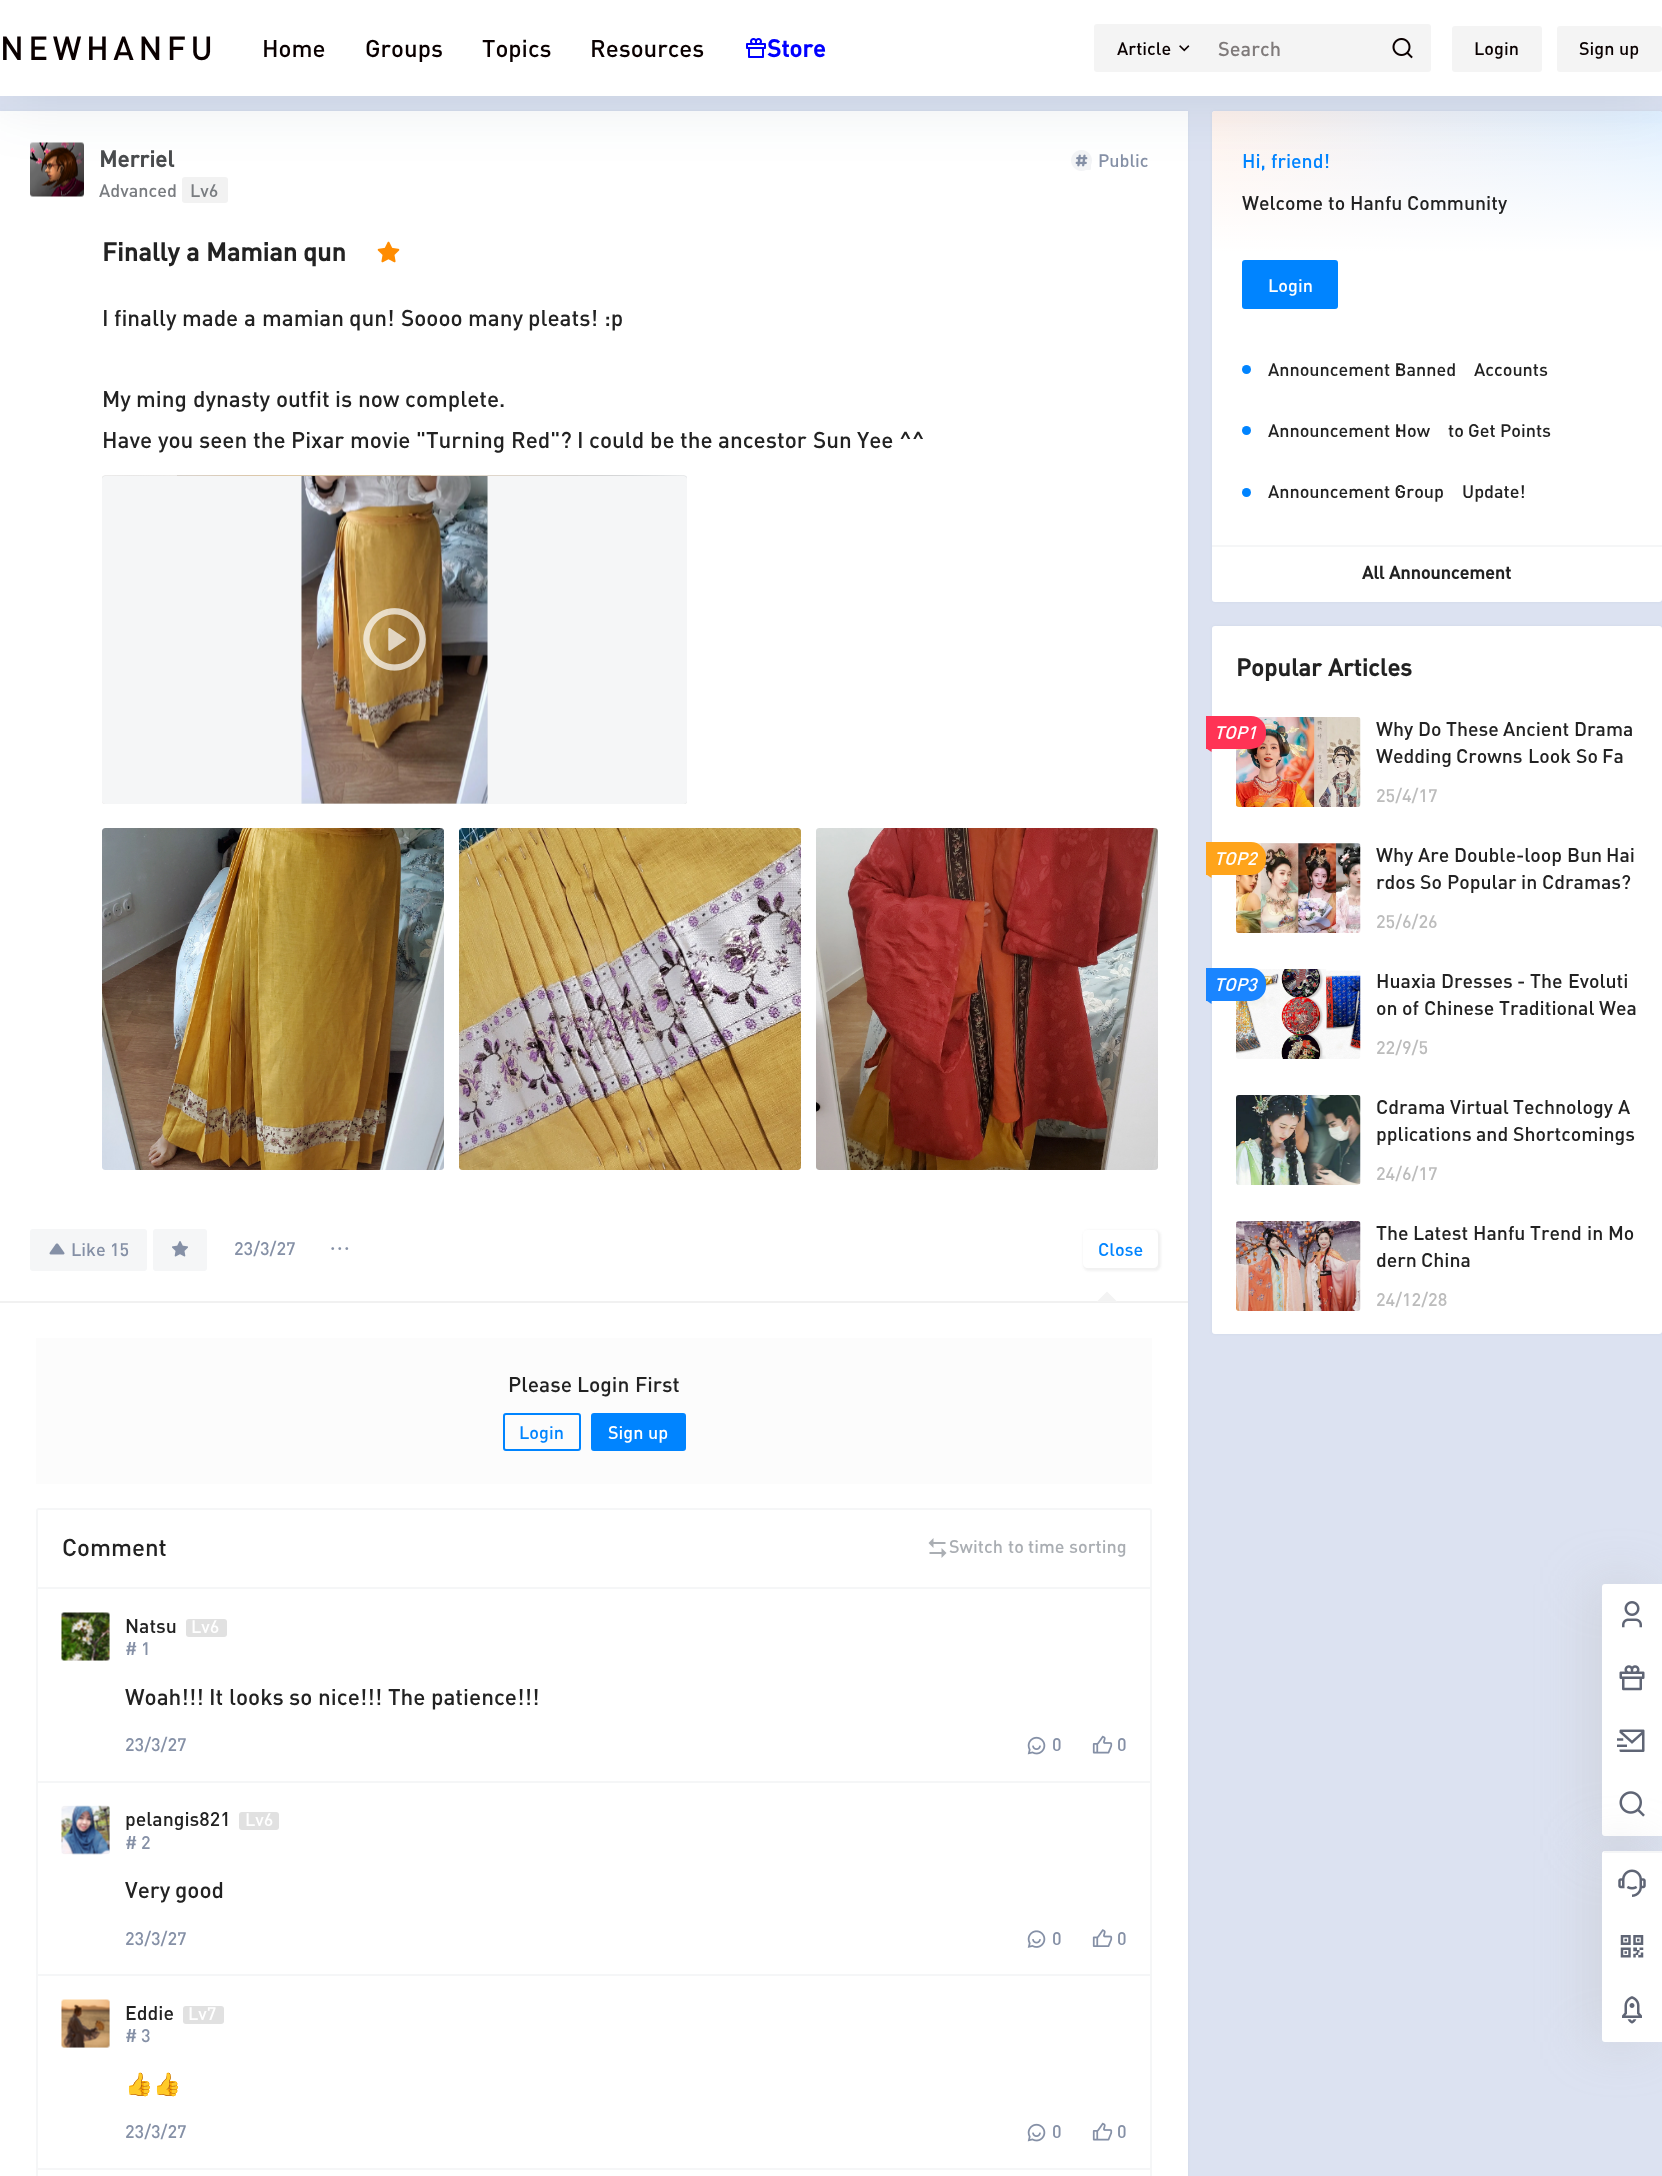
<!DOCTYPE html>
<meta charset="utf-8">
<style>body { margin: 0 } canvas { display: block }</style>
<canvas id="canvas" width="1662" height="2176"></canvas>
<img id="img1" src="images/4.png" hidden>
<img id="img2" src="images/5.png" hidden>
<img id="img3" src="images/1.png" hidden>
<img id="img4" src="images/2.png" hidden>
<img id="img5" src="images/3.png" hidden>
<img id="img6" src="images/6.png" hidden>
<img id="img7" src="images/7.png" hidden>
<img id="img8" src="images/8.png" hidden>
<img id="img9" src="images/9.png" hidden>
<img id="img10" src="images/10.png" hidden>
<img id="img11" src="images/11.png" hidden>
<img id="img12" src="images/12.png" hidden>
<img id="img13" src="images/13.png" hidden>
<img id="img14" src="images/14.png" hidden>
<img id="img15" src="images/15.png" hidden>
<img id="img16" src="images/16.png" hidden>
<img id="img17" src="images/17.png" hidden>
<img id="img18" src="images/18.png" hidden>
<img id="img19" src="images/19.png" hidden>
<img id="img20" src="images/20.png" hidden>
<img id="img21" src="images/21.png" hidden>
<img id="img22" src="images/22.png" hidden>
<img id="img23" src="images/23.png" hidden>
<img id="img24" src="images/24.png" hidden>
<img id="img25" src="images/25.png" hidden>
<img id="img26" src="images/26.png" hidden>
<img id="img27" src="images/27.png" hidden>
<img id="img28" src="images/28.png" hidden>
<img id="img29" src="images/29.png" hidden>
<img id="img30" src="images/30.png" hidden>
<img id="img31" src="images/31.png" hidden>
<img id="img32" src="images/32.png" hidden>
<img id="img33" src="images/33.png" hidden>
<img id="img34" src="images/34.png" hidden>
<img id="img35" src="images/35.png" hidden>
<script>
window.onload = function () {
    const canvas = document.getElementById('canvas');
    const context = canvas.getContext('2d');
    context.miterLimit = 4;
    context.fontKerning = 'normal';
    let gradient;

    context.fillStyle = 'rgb(220, 226, 241)';
    context.fillRect(0, 0, 1662, 2176);
    context.fillStyle = 'rgba(98, 124, 153, 0.1)';
    context.filter = 'blur(1.5px)';
    context.beginPath();
    context.rect(0, 111, 1188, 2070);
    context.fill();
    context.filter = 'none';
    context.fillStyle = 'rgb(255, 255, 255)';
    context.fillRect(0, 111, 1188, 2065);
    context.drawImage(document.getElementById('img1'), 30, 142, 54, 55);
    context.fillStyle = 'rgb(242, 242, 242)';
    context.beginPath();
    context.roundRect(182, 177, 46, 26, 3);
    context.fill();
    context.drawImage(document.getElementById('img2'), 1071, 150, 21, 21);
    context.fillStyle = 'rgba(98, 124, 153, 0.1)';
    context.filter = 'blur(1.5px)';
    context.beginPath();
    context.roundRect(1212, 111, 450, 491, 3);
    context.fill();
    context.filter = 'none';
    context.fillStyle = 'rgb(255, 255, 255)';
    context.beginPath();
    context.roundRect(1212, 111, 450, 491, 3);
    context.fill();
    gradient = context.createLinearGradient(1212, 182, 1662, 181);
    gradient.addColorStop(0, 'rgb(255, 242, 236)');
    gradient.addColorStop(0.42, 'rgb(240, 241, 246)');
    gradient.addColorStop(1, 'rgb(225, 240, 255)');
    context.fillStyle = gradient;
    context.beginPath();
    context.roundRect(1212, 111, 450, 141, [3, 3, 0, 0]);
    context.fill();
    gradient = context.createLinearGradient(1437, 252, 1437, 111);
    gradient.addColorStop(0, 'rgb(255, 255, 255)');
    gradient.addColorStop(1, 'rgba(255, 255, 255, 0)');
    context.fillStyle = gradient;
    context.fillRect(1212, 123, 450, 129);
    context.fillStyle = 'rgba(17, 58, 93, 0.1)';
    context.filter = 'blur(30px)';
    context.beginPath();
    context.rect(0, 8, 1662, 96);
    context.fill();
    context.filter = 'none';
    context.fillStyle = 'rgb(255, 255, 255)';
    context.fillRect(0, 0, 1662, 96);
    context.drawImage(document.getElementById('img3'), 746, 38, 20, 20);
    context.fillStyle = 'rgb(244, 244, 244)';
    context.beginPath();
    context.roundRect(1094, 24, 337, 48, 3);
    context.fill();
    context.drawImage(document.getElementById('img4'), 1179, 45, 11, 7);
    context.drawImage(document.getElementById('img5'), 1392, 38, 21, 21);
    context.beginPath();
    context.roundRect(1452, 26, 90, 46, 3);
    context.fill();
    context.beginPath();
    context.roundRect(1557, 26, 105, 46, 3);
    context.fill();
    context.drawImage(document.getElementById('img6'), 377, 241, 23, 22);
    context.drawImage(document.getElementById('img7'), 102, 475, 585, 329);
    context.fillStyle = 'rgb(245, 246, 247)';
    context.beginPath();
    context.roundRect(102, 476, 585, 328, 3);
    context.fill();
    context.drawImage(document.getElementById('img8'), 301, 476, 187, 328);
    context.drawImage(document.getElementById('img9'), 363, 608, 63, 63);
    context.beginPath();
    context.roundRect(102, 828, 342, 342, 3);
    context.fill();
    context.drawImage(document.getElementById('img10'), 102, 828, 342, 342);
    context.beginPath();
    context.roundRect(459, 828, 342, 342, 3);
    context.fill();
    context.drawImage(document.getElementById('img11'), 459, 828, 342, 342);
    context.beginPath();
    context.roundRect(816, 828, 342, 342, 3);
    context.fill();
    context.drawImage(document.getElementById('img12'), 816, 828, 342, 342);
    context.beginPath();
    context.roundRect(30, 1229, 117, 42, 3);
    context.fill();
    context.drawImage(document.getElementById('img13'), 49, 1243, 16, 12);
    context.beginPath();
    context.roundRect(153, 1229, 54, 42, 3);
    context.fill();
    context.drawImage(document.getElementById('img14'), 172, 1241, 16, 16);
    context.drawImage(document.getElementById('img15'), 331, 1247, 18, 3);
    context.save();
    context.beginPath();
    context.moveTo(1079, 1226);
    context.lineTo(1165, 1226);
    context.lineTo(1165, 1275);
    context.lineTo(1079, 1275);
    context.closePath();
    context.moveTo(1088, 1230);
    context.lineTo(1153, 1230);
    context.bezierCurveTo(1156, 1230, 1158, 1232, 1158, 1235);
    context.lineTo(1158, 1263);
    context.bezierCurveTo(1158, 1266, 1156, 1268, 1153, 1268);
    context.lineTo(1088, 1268);
    context.bezierCurveTo(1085, 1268, 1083, 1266, 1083, 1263);
    context.lineTo(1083, 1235);
    context.bezierCurveTo(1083, 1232, 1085, 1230, 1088, 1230);
    context.closePath();
    context.clip('evenodd');
    context.fillStyle = 'rgba(144, 144, 144, 0.13)';
    context.filter = 'blur(1px)';
    context.beginPath();
    context.roundRect(1083, 1230, 78, 41, 6);
    context.fill();
    context.filter = 'none';
    context.restore();
    context.fillStyle = 'rgb(241, 241, 241)';
    context.fillRect(0, 1301, 1188, 2);
    context.fillStyle = 'rgb(243, 243, 243)';
    context.beginPath();
    context.moveTo(1117.5, 1302);
    context.lineTo(1096.5, 1302);
    context.lineTo(1107, 1291.5);
    context.closePath();
    context.fill();
    context.fillStyle = 'rgb(252, 252, 252)';
    context.fillRect(36, 1338, 1116, 146);
    context.beginPath();
    context.roundRect(504, 1414, 76, 36, 2);
    context.strokeStyle = 'rgb(0, 132, 255)';
    context.lineWidth = 2;
    context.stroke();
    context.fillStyle = 'rgb(0, 132, 255)';
    context.beginPath();
    context.roundRect(592, 1414, 93, 36, 2);
    context.fill();
    context.stroke();
    context.beginPath();
    context.roundRect(37, 1509, 1114, 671, 2);
    context.strokeStyle = 'rgb(245, 246, 247)';
    context.stroke();
    context.fillStyle = 'rgb(245, 246, 247)';
    context.fillRect(38, 1587, 1113, 2);
    context.drawImage(document.getElementById('img16'), 928, 1538, 19, 20);
    context.fillStyle = 'rgb(238, 238, 238)';
    context.beginPath();
    context.roundRect(62, 1613, 48, 48, 3);
    context.fill();
    context.drawImage(document.getElementById('img17'), 61, 1612, 49, 49);
    context.fillStyle = 'rgb(225, 225, 225)';
    context.beginPath();
    context.roundRect(186, 1619, 41, 18, 3);
    context.fill();
    context.drawImage(document.getElementById('img18'), 1027, 1736, 19, 19);
    context.drawImage(document.getElementById('img19'), 1092, 1735, 21, 19);
    context.fillStyle = 'rgb(245, 246, 247)';
    context.fillRect(38, 1781, 1113, 2);
    context.fillStyle = 'rgb(238, 238, 238)';
    context.beginPath();
    context.roundRect(62, 1806, 48, 48, 3);
    context.fill();
    context.drawImage(document.getElementById('img20'), 61, 1805, 49, 50);
    context.fillStyle = 'rgb(225, 225, 225)';
    context.beginPath();
    context.roundRect(239, 1812, 40, 18, 3);
    context.fill();
    context.drawImage(document.getElementById('img21'), 1027, 1930, 19, 18);
    context.drawImage(document.getElementById('img22'), 1092, 1929, 21, 18);
    context.fillStyle = 'rgb(245, 246, 247)';
    context.fillRect(38, 1974, 1113, 2);
    context.fillStyle = 'rgb(238, 238, 238)';
    context.beginPath();
    context.roundRect(62, 2000, 48, 48, 3);
    context.fill();
    context.drawImage(document.getElementById('img23'), 61, 1999, 49, 49);
    context.fillStyle = 'rgb(225, 225, 225)';
    context.beginPath();
    context.roundRect(183, 2006, 41, 18, 3);
    context.fill();
    context.drawImage(document.getElementById('img18'), 1027, 2123, 19, 19);
    context.drawImage(document.getElementById('img19'), 1092, 2122, 21, 19);
    context.fillStyle = 'rgb(245, 246, 247)';
    context.fillRect(38, 2168, 1113, 2);
    context.fillStyle = 'rgb(0, 132, 255)';
    context.beginPath();
    context.roundRect(1243, 261, 94, 47, 2);
    context.fill();
    context.strokeStyle = 'rgb(0, 132, 255)';
    context.stroke();
    context.beginPath();
    context.arc(1246.5, 369.5, 4.5, 0, 2 * Math.PI);
    context.fill();
    context.beginPath();
    context.arc(1246.5, 430.5, 4.5, 0, 2 * Math.PI);
    context.fill();
    context.beginPath();
    context.arc(1246.5, 492.5, 4.5, 0, 2 * Math.PI);
    context.fill();
    context.fillStyle = 'rgb(245, 246, 247)';
    context.fillRect(1212, 545, 450, 2);
    context.fillStyle = 'rgba(98, 124, 153, 0.1)';
    context.filter = 'blur(1.5px)';
    context.beginPath();
    context.roundRect(1212, 626, 450, 708, 3);
    context.fill();
    context.filter = 'none';
    context.fillStyle = 'rgb(255, 255, 255)';
    context.beginPath();
    context.roundRect(1212, 626, 450, 708, 3);
    context.fill();
    context.drawImage(document.getElementById('img24'), 1236, 717, 125, 90);
    context.fillStyle = 'rgb(255, 51, 85)';
    context.beginPath();
    context.roundRect(1206, 716, 60, 33, [0, 15, 15, 0]);
    context.fill();
    context.beginPath();
    context.moveTo(1211.5, 752);
    context.lineTo(1206.5, 748.5);
    context.lineTo(1212, 745.5);
    context.closePath();
    context.fill();
    context.drawImage(document.getElementById('img25'), 1236, 843, 125, 90);
    context.fillStyle = 'rgb(255, 164, 27)';
    context.beginPath();
    context.roundRect(1206, 842, 60, 33, [0, 15, 15, 0]);
    context.fill();
    context.beginPath();
    context.moveTo(1211.5, 878);
    context.lineTo(1206.5, 874.5);
    context.lineTo(1212, 871.5);
    context.closePath();
    context.fill();
    context.drawImage(document.getElementById('img26'), 1236, 969, 125, 90);
    context.fillStyle = 'rgb(26, 133, 255)';
    context.beginPath();
    context.roundRect(1206, 968, 60, 33, [0, 15, 15, 0]);
    context.fill();
    context.beginPath();
    context.moveTo(1211.5, 1004);
    context.lineTo(1206.5, 1000.5);
    context.lineTo(1212, 997.5);
    context.closePath();
    context.fill();
    context.drawImage(document.getElementById('img27'), 1236, 1095, 125, 90);
    context.drawImage(document.getElementById('img28'), 1236, 1221, 125, 90);
    context.fillStyle = 'rgba(181, 181, 181, 0.32)';
    context.filter = 'blur(26px)';
    context.beginPath();
    context.roundRect(1590, 1584, 60, 252, 3);
    context.fill();
    context.filter = 'none';
    context.fillStyle = 'rgb(255, 255, 255)';
    context.beginPath();
    context.roundRect(1602, 1584, 60, 252, [3, 0, 0, 3]);
    context.fill();
    context.drawImage(document.getElementById('img29'), 1622, 1601, 20, 27);
    context.drawImage(document.getElementById('img30'), 1619, 1665, 26, 26);
    context.drawImage(document.getElementById('img31'), 1617, 1729, 28, 23);
    context.drawImage(document.getElementById('img32'), 1619, 1791, 26, 26);
    context.fillStyle = 'rgba(181, 181, 181, 0.32)';
    context.filter = 'blur(26px)';
    context.beginPath();
    context.roundRect(1590, 1851, 60, 191, 3);
    context.fill();
    context.filter = 'none';
    context.fillStyle = 'rgb(255, 255, 255)';
    context.beginPath();
    context.roundRect(1602, 1851, 60, 191, [3, 0, 0, 3]);
    context.fill();
    context.fillStyle = 'rgb(245, 246, 247)';
    context.fillRect(1604, 1851, 58, 2);
    context.drawImage(document.getElementById('img33'), 1618, 1869, 28, 28);
    context.drawImage(document.getElementById('img34'), 1620, 1935, 24, 23);
    context.drawImage(document.getElementById('img35'), 1622, 1996, 20, 28);
    context.letterSpacing = '4.5px';
    context.font = '500 33px DIN';
    context.fillStyle = 'rgb(10, 0, 0)';
    context.fillText('NEWHANFU', 0, 60);
    context.letterSpacing = '0px';
    context.font = '500 24px DIN';
    context.fillText('Home', 262, 57);
    context.fillText('Groups', 365, 57);
    context.fillText('Topics', 482, 57);
    context.fillText('Resources', 590, 57);
    context.font = 'bold 24px DIN';
    context.fillStyle = 'rgb(0, 0, 255)';
    context.fillText('Store', 767, 57);
    context.font = '500 18px DIN';
    context.fillStyle = 'rgb(10, 0, 0)';
    context.fillText('Article', 1117, 55);
    context.font = '500 20px DIN';
    context.fillStyle = 'rgb(127, 122, 122)';
    context.fillText('Search', 1218, 56);
    context.font = '500 18px DIN';
    context.fillStyle = 'rgb(10, 0, 0)';
    context.fillText('Login', 1474, 55);
    context.fillText('Sign', 1579, 55);
    context.fillText('up', 1619, 55);
    context.font = 'bold 22.5px DIN';
    context.fillStyle = 'rgb(73, 75, 77)';
    context.fillText('Merriel', 99, 167);
    context.font = '500 18px DIN';
    context.fillStyle = 'rgb(121, 124, 128)';
    context.fillText('Advanced', 99, 197);
    context.fillText('Lv6', 190, 197);
    context.fillStyle = 'rgb(133, 144, 166)';
    context.fillText('Public', 1098, 167);
    context.font = 'bold 25.5px DIN';
    context.fillStyle = 'rgb(34, 34, 34)';
    context.fillText('Finally', 102, 261);
    context.fillText('a', 186, 261);
    context.fillText('Mamian', 206, 261);
    context.fillText('qun', 303, 261);
    context.font = '500 22.5px DIN';
    context.fillText('I', 102, 326);
    context.fillText('finally', 114, 326);
    context.fillText('made', 182, 326);
    context.fillText('a', 244, 326);
    context.fillText('mamian', 262, 326);
    context.fillText('qun!', 349, 326);
    context.fillText('Soooo', 401, 326);
    context.fillText('many', 468, 326);
    context.fillText('pleats!', 528, 326);
    context.fillText(':p', 604, 326);
    context.fillText('My', 102, 407);
    context.fillText('ming', 136, 407);
    context.fillText('dynasty', 193, 407);
    context.fillText('outfit', 276, 407);
    context.fillText('is', 335, 407);
    context.fillText('now', 358, 407);
    context.fillText('complete.', 405, 407);
    context.fillText('Have', 102, 448);
    context.fillText('you', 158, 448);
    context.fillText('seen', 199, 448);
    context.fillText('the', 253, 448);
    context.fillText('Pixar', 291, 448);
    context.fillText('movie', 350, 448);
    context.fillText('"Turning', 416, 448);
    context.fillText('Red"?', 511, 448);
    context.fillText('I', 577, 448);
    context.fillText('could', 589, 448);
    context.fillText('be', 650, 448);
    context.fillText('the', 680, 448);
    context.fillText('ancestor', 718, 448);
    context.fillText('Sun', 813, 448);
    context.fillText('Yee', 857, 448);
    context.fillText('^^', 899, 448);
    context.font = '500 18px DIN';
    context.fillStyle = 'rgb(133, 144, 166)';
    context.fillText('Like', 71, 1256);
    context.fillText('15', 110, 1256);
    context.fillText('23/3/27', 234, 1255);
    context.fillStyle = 'rgb(0, 132, 255)';
    context.fillText('Close', 1098, 1256);
    context.font = '500 21px DIN';
    context.fillStyle = 'rgb(34, 34, 34)';
    context.fillText('Please', 508, 1392);
    context.fillText('Login', 577, 1392);
    context.fillText('First', 635, 1392);
    context.font = '500 18px DIN';
    context.fillStyle = 'rgb(0, 132, 255)';
    context.fillText('Login', 519, 1439);
    context.fillStyle = 'rgb(255, 255, 255)';
    context.fillText('Sign', 608, 1439);
    context.fillText('up', 648, 1439);
    context.font = '500 24px DIN';
    context.fillStyle = 'rgb(34, 34, 34)';
    context.fillText('Comment', 62, 1556);
    context.font = '500 18px DIN';
    context.fillStyle = 'rgb(170, 174, 179)';
    context.fillText('Switch', 949, 1553);
    context.fillText('to', 1008, 1553);
    context.fillText('time', 1028, 1553);
    context.fillText('sorting', 1069, 1553);
    context.font = '500 19.5px DIN';
    context.fillStyle = 'rgb(34, 34, 34)';
    context.fillText('Natsu', 125, 1633);
    context.font = '500 18px DIN';
    context.fillStyle = 'rgb(255, 255, 255)';
    context.fillText('Lv6', 191, 1633);
    context.fillStyle = 'rgb(133, 144, 166)';
    context.fillText('#', 125, 1655);
    context.fillText('1', 141, 1655);
    context.font = '500 22.5px DIN';
    context.fillStyle = 'rgb(34, 34, 34)';
    context.fillText('Woah!!!', 125, 1705);
    context.fillText('It', 209, 1705);
    context.fillText('looks', 229, 1705);
    context.fillText('so', 289, 1705);
    context.fillText('nice!!!', 318, 1705);
    context.fillText('The', 388, 1705);
    context.fillText('patience!!!', 431, 1705);
    context.font = '500 18px DIN';
    context.fillStyle = 'rgb(133, 144, 166)';
    context.fillText('23/3/27', 125, 1751);
    context.fillText('0', 1052, 1751);
    context.fillText('0', 1117, 1751);
    context.font = '500 19.5px DIN';
    context.fillStyle = 'rgb(34, 34, 34)';
    context.fillText('pelangis821', 125, 1826);
    context.font = '500 18px DIN';
    context.fillStyle = 'rgb(255, 255, 255)';
    context.fillText('Lv6', 245, 1826);
    context.fillStyle = 'rgb(133, 144, 166)';
    context.fillText('#', 125, 1849);
    context.fillText('2', 141, 1849);
    context.font = '500 22.5px DIN';
    context.fillStyle = 'rgb(34, 34, 34)';
    context.fillText('Very', 125, 1898);
    context.fillText('good', 175, 1898);
    context.font = '500 18px DIN';
    context.fillStyle = 'rgb(133, 144, 166)';
    context.fillText('23/3/27', 125, 1945);
    context.fillText('0', 1052, 1945);
    context.fillText('0', 1117, 1945);
    context.font = '500 19.5px DIN';
    context.fillStyle = 'rgb(34, 34, 34)';
    context.fillText('Eddie', 125, 2020);
    context.font = '500 18px DIN';
    context.fillStyle = 'rgb(255, 255, 255)';
    context.fillText('Lv7', 188, 2020);
    context.fillStyle = 'rgb(133, 144, 166)';
    context.fillText('#', 125, 2042);
    context.fillText('3', 141, 2042);
    context.font = '22.5px Noto Color Emoji';
    context.fillStyle = 'rgb(34, 34, 34)';
    context.fillText('👍👍', 125, 2092);
    context.font = '500 18px DIN';
    context.fillStyle = 'rgb(133, 144, 166)';
    context.fillText('23/3/27', 125, 2138);
    context.fillText('0', 1052, 2138);
    context.fillText('0', 1117, 2138);
    context.font = '500 19.5px DIN';
    context.fillStyle = 'rgb(0, 132, 255)';
    context.fillText('Hi,', 1242, 168);
    context.fillText('friend!', 1271, 168);
    context.fillStyle = 'rgb(34, 34, 34)';
    context.fillText('Welcome', 1242, 210);
    context.fillText('to', 1328, 210);
    context.fillText('Hanfu', 1350, 210);
    context.fillText('Community', 1407, 210);
    context.font = '500 18px DIN';
    context.fillStyle = 'rgb(255, 255, 255)';
    context.fillText('Login', 1268, 292);
    context.fillStyle = 'rgb(34, 34, 34)';
    context.fillText('Announcement Banned', 1268, 376);
    context.fillText('Accounts', 1474, 376);
    context.font = '500 18px WenQuanYi Zen Hei';
    context.fillText('：', 1390, 376);
    context.font = '500 18px DIN';
    context.fillText('Announcement How', 1268, 437);
    context.fillText('to', 1448, 437);
    context.fillText('Get', 1468, 437);
    context.fillText('Points', 1500, 437);
    context.font = '500 18px WenQuanYi Zen Hei';
    context.fillText('：', 1390, 437);
    context.font = '500 18px DIN';
    context.fillText('Announcement Group', 1268, 498);
    context.fillText('Update!', 1462, 498);
    context.font = '500 18px WenQuanYi Zen Hei';
    context.fillText('：', 1390, 498);
    context.font = 'bold 18px DIN';
    context.fillText('All', 1362, 579);
    context.fillText('Announcement', 1389, 579);
    context.font = 'bold 24px DIN';
    context.fillText('Popular', 1236, 676);
    context.fillText('Articles', 1328, 676);
    context.font = 'italic 500 18px DIN';
    context.fillStyle = 'rgb(255, 255, 255)';
    context.fillText('TOP1', 1214, 739);
    context.font = '500 19.5px DIN';
    context.fillStyle = 'rgb(34, 34, 34)';
    context.fillText('Why', 1376, 736);
    context.fillText('Do', 1418, 736);
    context.fillText('These', 1446, 736);
    context.fillText('Ancient', 1503, 736);
    context.fillText('Drama', 1574, 736);
    context.fillText('Wedding', 1376, 763);
    context.fillText('Crowns', 1456, 763);
    context.fillText('Look', 1528, 763);
    context.fillText('So', 1576, 763);
    context.fillText('Fa', 1602, 763);
    context.font = '500 18px DIN';
    context.fillStyle = 'rgb(188, 188, 188)';
    context.fillText('25/4/17', 1376, 802);
    context.font = 'italic 500 18px DIN';
    context.fillStyle = 'rgb(255, 255, 255)';
    context.fillText('TOP2', 1214, 865);
    context.font = '500 19.5px DIN';
    context.fillStyle = 'rgb(34, 34, 34)';
    context.fillText('Why', 1376, 862);
    context.fillText('Are', 1418, 862);
    context.fillText('Double-loop', 1454, 862);
    context.fillText('Bun', 1567, 862);
    context.fillText('Hai', 1606, 862);
    context.fillText('rdos', 1376, 889);
    context.fillText('So', 1420, 889);
    context.fillText('Popular', 1447, 889);
    context.fillText('in', 1521, 889);
    context.fillText('Cdramas?', 1542, 889);
    context.font = '500 18px DIN';
    context.fillStyle = 'rgb(188, 188, 188)';
    context.fillText('25/6/26', 1376, 928);
    context.font = 'italic 500 18px DIN';
    context.fillStyle = 'rgb(255, 255, 255)';
    context.fillText('TOP3', 1214, 991);
    context.font = '500 19.5px DIN';
    context.fillStyle = 'rgb(34, 34, 34)';
    context.fillText('Huaxia', 1376, 988);
    context.fillText('Dresses', 1441, 988);
    context.fillText('-', 1517, 988);
    context.fillText('The', 1530, 988);
    context.fillText('Evoluti', 1568, 988);
    context.fillText('on', 1376, 1015);
    context.fillText('of', 1402, 1015);
    context.fillText('Chinese', 1424, 1015);
    context.fillText('Traditional', 1499, 1015);
    context.fillText('Wea', 1599, 1015);
    context.font = '500 18px DIN';
    context.fillStyle = 'rgb(188, 188, 188)';
    context.fillText('22/9/5', 1376, 1054);
    context.font = '500 19.5px DIN';
    context.fillStyle = 'rgb(34, 34, 34)';
    context.fillText('Cdrama', 1376, 1114);
    context.fillText('Virtual', 1450, 1114);
    context.fillText('Technology', 1513, 1114);
    context.fillText('A', 1618, 1114);
    context.fillText('pplications', 1376, 1141);
    context.fillText('and', 1476, 1141);
    context.fillText('Shortcomings', 1513, 1141);
    context.font = '500 18px DIN';
    context.fillStyle = 'rgb(188, 188, 188)';
    context.fillText('24/6/17', 1376, 1180);
    context.font = '500 19.5px DIN';
    context.fillStyle = 'rgb(34, 34, 34)';
    context.fillText('The', 1376, 1240);
    context.fillText('Latest', 1413, 1240);
    context.fillText('Hanfu', 1473, 1240);
    context.fillText('Trend', 1530, 1240);
    context.fillText('in', 1587, 1240);
    context.fillText('Mo', 1608, 1240);
    context.fillText('dern', 1376, 1267);
    context.fillText('China', 1421, 1267);
    context.font = '500 18px DIN';
    context.fillStyle = 'rgb(188, 188, 188)';
    context.fillText('24/12/28', 1376, 1306);
};
</script>
